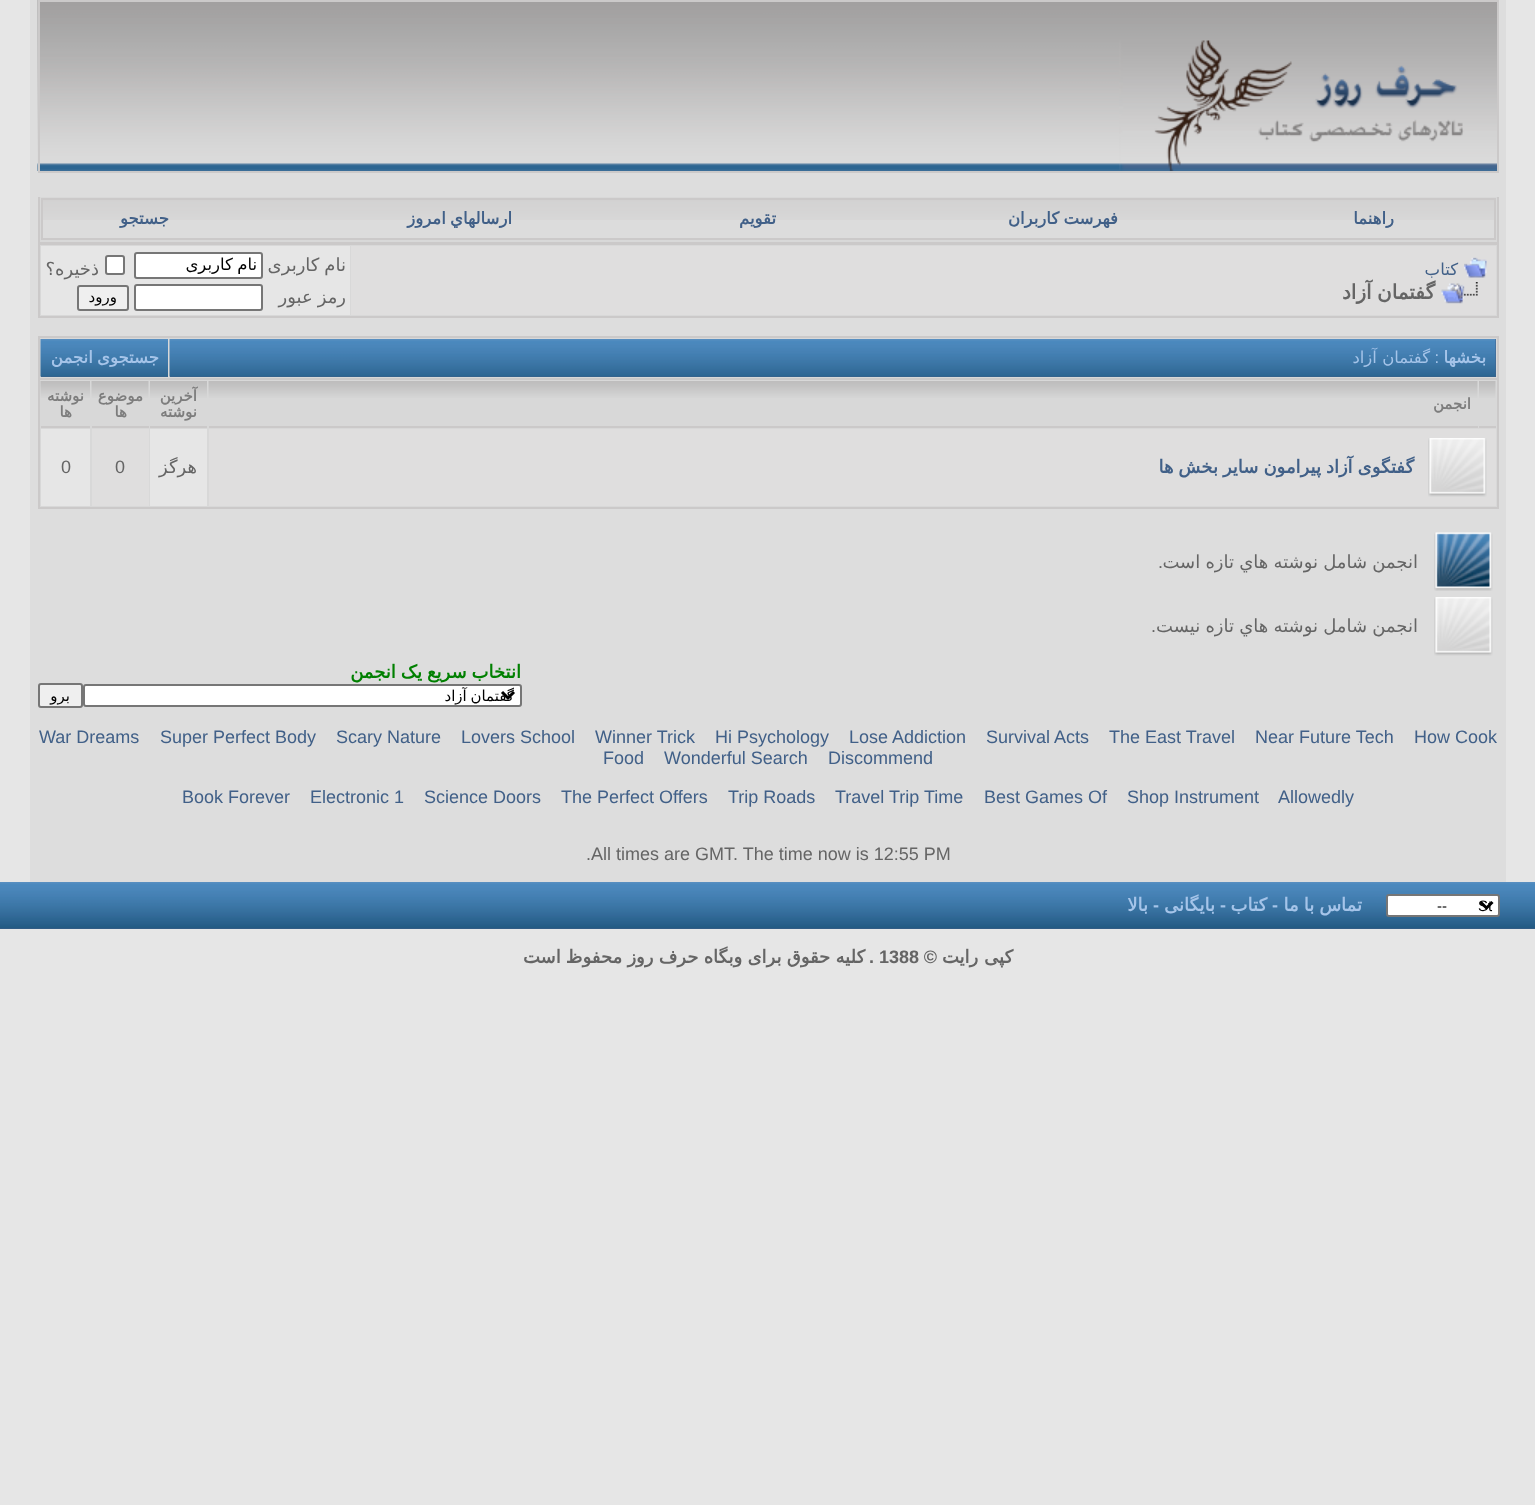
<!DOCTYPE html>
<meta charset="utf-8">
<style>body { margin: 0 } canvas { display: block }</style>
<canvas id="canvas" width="1535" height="1505"></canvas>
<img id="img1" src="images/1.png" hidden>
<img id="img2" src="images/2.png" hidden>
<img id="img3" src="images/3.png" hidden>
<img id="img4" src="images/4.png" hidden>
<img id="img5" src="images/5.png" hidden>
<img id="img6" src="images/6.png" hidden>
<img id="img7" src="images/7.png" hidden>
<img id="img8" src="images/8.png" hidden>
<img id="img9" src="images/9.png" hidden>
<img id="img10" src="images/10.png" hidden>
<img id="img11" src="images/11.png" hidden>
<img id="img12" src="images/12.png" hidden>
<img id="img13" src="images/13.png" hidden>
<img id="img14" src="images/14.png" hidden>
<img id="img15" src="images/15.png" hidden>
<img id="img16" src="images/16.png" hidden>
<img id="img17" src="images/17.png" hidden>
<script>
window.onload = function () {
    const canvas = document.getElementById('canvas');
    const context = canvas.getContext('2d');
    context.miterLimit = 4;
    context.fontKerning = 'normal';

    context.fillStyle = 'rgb(230, 230, 230)';
    context.fillRect(0, 0, 1535, 1505);
    context.fillStyle = 'rgb(221, 221, 221)';
    context.fillRect(30, 0, 1476, 882);
    context.drawImage(document.getElementById('img1'), 37, 0, 1460, 171);
    context.strokeStyle = 'rgb(203, 201, 201)';
    context.lineWidth = 2;
    context.strokeRect(39, 1, 1459, 171);
    context.drawImage(document.getElementById('img2'), 1119, 40, 378, 131);
    context.fillStyle = 'rgb(216, 216, 216)';
    context.fillRect(40, 197, 1457, 45);
    context.fillStyle = 'rgb(203, 201, 201)';
    context.fillRect(1497, 197, 2, 46);
    context.fillRect(38, 242, 1461, 1);
    context.fillRect(38, 197, 2, 46);
    context.fillStyle = 'rgb(220, 220, 220)';
    context.fillRect(43, 220, 1451, 18);
    context.drawImage(document.getElementById('img3'), 43, 200, 1451, 20);
    context.strokeRect(42, 199, 1453, 40);
    context.fillStyle = 'rgb(216, 216, 216)';
    context.beginPath();
    context.rect(39, 244, 1459, 73);
    context.fill();
    context.stroke();
    context.fillStyle = 'rgb(223, 222, 222)';
    context.fillRect(351, 246, 1145, 69);
    context.drawImage(document.getElementById('img4'), 1464, 257, 23, 21);
    context.drawImage(document.getElementById('img5'), 1441, 282, 37, 22);
    context.fillStyle = 'rgb(230, 230, 230)';
    context.fillRect(41, 246, 309, 69);
    context.fillStyle = 'rgb(255, 255, 255)';
    context.beginPath();
    context.roundRect(135, 253, 127, 25, 2);
    context.fill();
    context.strokeStyle = 'rgb(118, 118, 118)';
    context.stroke();
    context.beginPath();
    context.roundRect(106, 256, 18, 18, 2);
    context.fill();
    context.stroke();
    context.beginPath();
    context.roundRect(135, 285, 127, 25, 2);
    context.fill();
    context.stroke();
    context.fillStyle = 'rgb(239, 239, 239)';
    context.beginPath();
    context.roundRect(78, 286, 50, 24, 2);
    context.fill();
    context.stroke();
    context.fillStyle = 'rgb(216, 216, 216)';
    context.fillRect(40, 338, 1457, 40);
    context.fillStyle = 'rgb(203, 201, 201)';
    context.fillRect(38, 336, 1461, 2);
    context.fillRect(1497, 336, 2, 42);
    context.fillRect(38, 336, 2, 42);
    context.fillStyle = 'rgb(65, 96, 136)';
    context.fillRect(170, 339, 1326, 38);
    context.drawImage(document.getElementById('img6'), 169, 339, 1327, 38);
    context.fillRect(41, 376, 127, 1);
    context.drawImage(document.getElementById('img7'), 40, 339, 128, 38);
    context.fillStyle = 'rgb(216, 216, 216)';
    context.beginPath();
    context.rect(39, 379, 1459, 129);
    context.fill();
    context.strokeStyle = 'rgb(203, 201, 201)';
    context.stroke();
    context.drawImage(document.getElementById('img8'), 1479, 381, 17, 17);
    context.fillStyle = 'rgb(203, 201, 201)';
    context.fillRect(1479, 426, 17, 2);
    context.drawImage(document.getElementById('img9'), 208, 381, 1270, 17);
    context.fillRect(209, 426, 1269, 2);
    context.drawImage(document.getElementById('img10'), 150, 381, 57, 17);
    context.fillRect(150, 426, 57, 2);
    context.drawImage(document.getElementById('img11'), 91, 381, 58, 17);
    context.fillRect(92, 426, 57, 2);
    context.drawImage(document.getElementById('img12'), 40, 381, 50, 17);
    context.fillRect(41, 426, 49, 2);
    context.fillStyle = 'rgb(223, 222, 222)';
    context.fillRect(209, 429, 1287, 77);
    context.drawImage(document.getElementById('img13'), 1428, 438, 59, 59);
    context.fillStyle = 'rgb(230, 230, 230)';
    context.fillRect(150, 429, 57, 77);
    context.fillStyle = 'rgb(223, 222, 222)';
    context.fillRect(92, 429, 57, 77);
    context.fillStyle = 'rgb(230, 230, 230)';
    context.fillRect(41, 429, 49, 77);
    context.drawImage(document.getElementById('img14'), 1434, 532, 59, 59);
    context.drawImage(document.getElementById('img15'), 1434, 597, 59, 59);
    context.fillStyle = 'rgb(255, 255, 255)';
    context.beginPath();
    context.roundRect(84, 685, 437, 21, 2);
    context.fill();
    context.strokeStyle = 'rgb(118, 118, 118)';
    context.stroke();
    context.beginPath();
    context.moveTo(502, 692);
    context.lineTo(508, 698);
    context.lineTo(514, 692);
    context.strokeStyle = 'rgb(0, 0, 0)';
    context.lineWidth = 3;
    context.stroke();
    context.fillStyle = 'rgb(239, 239, 239)';
    context.beginPath();
    context.roundRect(39, 684, 43, 23, 2);
    context.fill();
    context.strokeStyle = 'rgb(118, 118, 118)';
    context.lineWidth = 2;
    context.stroke();
    context.fillStyle = 'rgb(65, 96, 136)';
    context.fillRect(0, 928, 1535, 1);
    context.drawImage(document.getElementById('img16'), 0, 882, 1535, 47);
    context.fillRect(1374, 928, 138, 1);
    context.drawImage(document.getElementById('img17'), 1374, 882, 138, 47);
    context.fillStyle = 'rgb(255, 255, 255)';
    context.beginPath();
    context.roundRect(1387, 895, 112, 21, 2);
    context.fill();
    context.stroke();
    context.beginPath();
    context.moveTo(1480.5, 902);
    context.lineTo(1486.5, 908);
    context.lineTo(1492.5, 902);
    context.strokeStyle = 'rgb(0, 0, 0)';
    context.lineWidth = 3;
    context.stroke();
    context.direction = 'rtl';
    context.font = 'bold 16.5px DejaVu Sans';
    context.fillStyle = 'rgb(65, 96, 136)';
    context.fillText('راهنما', 1394, 224);
    context.wordSpacing = '-1px';
    context.fillText('فهرست کاربران', 1118, 224);
    context.wordSpacing = '0px';
    context.fillText('تقویم', 776, 224);
    context.wordSpacing = '-1px';
    context.fillText('ارسالهاي امروز', 512, 224);
    context.wordSpacing = '0px';
    context.fillText('جستجو', 169, 224);
    context.font = '16.5px DejaVu Sans';
    context.fillText('کتاب', 1458, 275);
    context.wordSpacing = '-1px';
    context.font = 'bold 20px DejaVu Sans';
    context.fillStyle = 'rgb(101, 101, 101)';
    context.fillText('گفتمان آزاد', 1435, 299);
    context.wordSpacing = '-0.75px';
    context.font = '18px DejaVu Sans';
    context.fillText('نام کاربری', 346, 271);
    context.wordSpacing = '-1px';
    context.font = '16.5px DejaVu Sans';
    context.fillStyle = 'rgb(0, 0, 0)';
    context.fillText('نام کاربری', 257, 270);
    context.wordSpacing = '0px';
    context.font = '18px DejaVu Sans';
    context.fillStyle = 'rgb(101, 101, 101)';
    context.fillText('ذخیره؟', 99, 275);
    context.wordSpacing = '-0.75px';
    context.fillText('رمز عبور', 346, 303);
    context.wordSpacing = '0px';
    context.font = '15px DejaVu Sans';
    context.fillStyle = 'rgb(0, 0, 0)';
    context.fillText('ورود', 117, 302);
    context.font = 'bold 16.5px DejaVu Sans';
    context.fillStyle = 'rgb(165, 196, 233)';
    context.fillText('بخشها', 1486, 363);
    context.font = '16.5px Liberation Sans';
    context.fillText(':', 1439, 363);
    context.font = '16.5px DejaVu Sans';
    context.fillText('گفتمان آزاد', 1430, 363);
    context.wordSpacing = '-1px';
    context.font = 'bold 16.5px DejaVu Sans';
    context.fillText('جستجوی انجمن', 159, 363);
    context.wordSpacing = '0px';
    context.font = 'bold 15px DejaVu Sans';
    context.fillStyle = 'rgb(125, 125, 125)';
    context.fillText('انجمن', 1471, 409);
    context.fillText('آخرين', 197, 401);
    context.fillText('نوشته', 197, 417);
    context.fillText('موضوع', 143, 401);
    context.fillText('ها', 127, 417);
    context.fillText('نوشته', 84, 401);
    context.fillText('ها', 72, 417);
    context.wordSpacing = '-0.75px';
    context.font = 'bold 18px DejaVu Sans';
    context.fillStyle = 'rgb(65, 96, 136)';
    context.fillText('گفتگوی آزاد پیرامون سایر بخش ها', 1414, 473);
    context.wordSpacing = '0px';
    context.font = '18px DejaVu Sans';
    context.fillStyle = 'rgb(101, 101, 101)';
    context.fillText('هرگز', 197, 473);
    context.direction = 'ltr';
    context.font = '18px Liberation Sans';
    context.fillText('0', 115, 473);
    context.fillText('0', 61, 473);
    context.wordSpacing = '-0.5px';
    context.direction = 'rtl';
    context.font = '18px DejaVu Sans';
    context.fillText('انجمن شامل نوشته هاي تازه است', 1418, 568);
    context.wordSpacing = '0px';
    context.font = '18px Liberation Sans';
    context.fillText('.', 1163, 568);
    context.wordSpacing = '-0.5px';
    context.font = '18px DejaVu Sans';
    context.fillText('انجمن شامل نوشته هاي تازه نيست', 1418, 632);
    context.wordSpacing = '0px';
    context.font = '18px Liberation Sans';
    context.fillText('.', 1156, 632);
    context.wordSpacing = '-0.75px';
    context.font = 'bold 18px DejaVu Sans';
    context.fillStyle = 'rgb(0, 128, 0)';
    context.fillText('انتخاب سریع یک انجمن', 521, 678);
    context.wordSpacing = '-1px';
    context.font = '15px DejaVu Sans';
    context.fillStyle = 'rgb(0, 0, 0)';
    context.fillText('گفتمان آزاد', 514, 701);
    context.wordSpacing = '0px';
    context.fillText('برو', 70, 701);
    context.direction = 'ltr';
    context.font = '18px Liberation Sans';
    context.fillStyle = 'rgb(65, 96, 136)';
    context.fillText('How Cook', 1414, 743);
    context.fillText('Near Future Tech', 1255, 743);
    context.fillText('The East Travel', 1109, 743);
    context.fillText('Survival Acts', 986, 743);
    context.fillText('Lose Addiction', 849, 743);
    context.fillText('Hi Psychology', 715, 743);
    context.fillText('Winner Trick', 595, 743);
    context.fillText('Lovers School', 461, 743);
    context.fillText('Scary Nature', 336, 743);
    context.fillText('Super Perfect Body', 160, 743);
    context.fillText('War Dreams', 39, 743);
    context.fillText('Discommend', 828, 764);
    context.fillText('Wonderful Search', 664, 764);
    context.fillText('Food', 603, 764);
    context.fillText('Allowedly', 1278, 803);
    context.fillText('Shop Instrument', 1127, 803);
    context.fillText('Best Games Of', 984, 803);
    context.fillText('Travel Trip Time', 835, 803);
    context.fillText('Trip Roads', 728, 803);
    context.fillText('The Perfect Offers', 561, 803);
    context.fillText('Science Doors', 424, 803);
    context.fillText('Electronic 1', 310, 803);
    context.fillText('Book Forever', 182, 803);
    context.fillStyle = 'rgb(101, 101, 101)';
    context.fillText('All times are GMT. The time now is 12:55 PM', 591, 860);
    context.fillText('.', 586, 860);
    context.font = '15px Liberation Sans';
    context.fillStyle = 'rgb(0, 0, 0)';
    context.fillText('St', 1478, 911);
    context.fillText('--', 1437, 911);
    context.wordSpacing = '-0.75px';
    context.direction = 'rtl';
    context.font = 'bold 18px DejaVu Sans';
    context.fillStyle = 'rgb(165, 196, 233)';
    context.fillText('تماس با ما', 1362, 911);
    context.wordSpacing = '0px';
    context.direction = 'ltr';
    context.font = 'bold 18px Liberation Sans';
    context.fillText('-', 1272, 911);
    context.direction = 'rtl';
    context.font = 'bold 18px DejaVu Sans';
    context.fillText('کتاب', 1267, 911);
    context.direction = 'ltr';
    context.font = 'bold 18px Liberation Sans';
    context.fillText('-', 1220, 911);
    context.direction = 'rtl';
    context.font = 'bold 18px DejaVu Sans';
    context.fillText('بایگانی', 1215, 911);
    context.direction = 'ltr';
    context.font = 'bold 18px Liberation Sans';
    context.fillText('-', 1153, 911);
    context.direction = 'rtl';
    context.font = 'bold 18px DejaVu Sans';
    context.fillText('بالا', 1148, 911);
    context.fillStyle = 'rgb(101, 101, 101)';
    context.fillText('کپی رایت', 1013, 963);
    context.font = 'bold 18px Liberation Sans';
    context.fillText('©', 937, 963);
    context.direction = 'ltr';
    context.fillText('1388', 879, 963);
    context.direction = 'rtl';
    context.fillText('.', 874, 963);
    context.wordSpacing = '-0.5px';
    context.font = 'bold 18px DejaVu Sans';
    context.fillText('کلیه حقوق برای وبگاه حرف روز محفوظ است', 865, 963);
};
</script>
